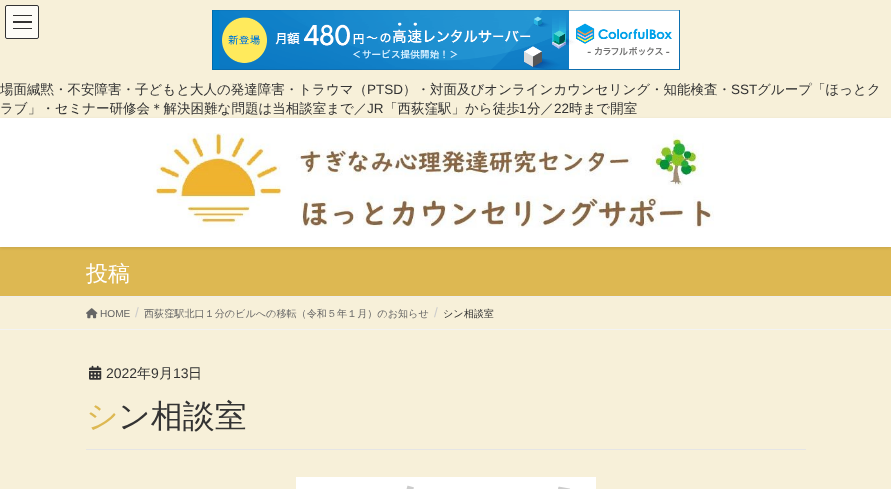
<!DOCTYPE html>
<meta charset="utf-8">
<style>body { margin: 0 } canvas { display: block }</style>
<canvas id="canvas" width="891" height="489"></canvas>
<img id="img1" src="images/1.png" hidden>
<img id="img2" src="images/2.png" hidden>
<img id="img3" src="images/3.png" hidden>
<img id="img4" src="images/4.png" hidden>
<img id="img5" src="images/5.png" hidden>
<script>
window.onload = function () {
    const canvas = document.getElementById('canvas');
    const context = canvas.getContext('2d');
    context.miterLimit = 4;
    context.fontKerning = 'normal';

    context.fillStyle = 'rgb(247, 240, 217)';
    context.fillRect(0, 0, 891, 489);
    context.fillStyle = 'rgb(253, 252, 247)';
    context.beginPath();
    context.roundRect(5, 5, 34, 34, 2);
    context.fill();
    context.fillStyle = 'rgb(51, 50, 49)';
    context.fillRect(13, 15, 19, 1);
    context.fillRect(13, 21, 19, 2);
    context.fillRect(13, 28, 19, 1);
    context.beginPath();
    context.roundRect(5.5, 5.5, 33, 33, 1.5);
    context.strokeStyle = 'rgb(51, 51, 51)';
    context.stroke();
    context.drawImage(document.getElementById('img1'), 212, 10, 468, 60);
    context.fillStyle = 'rgb(221, 184, 82)';
    context.fillRect(0, 247, 891, 49);
    context.fillStyle = 'rgba(0, 0, 0, 0.1)';
    context.filter = 'blur(1.5px)';
    context.beginPath();
    context.rect(0, 119, 891, 129);
    context.fill();
    context.filter = 'none';
    context.fillStyle = 'rgb(255, 255, 255)';
    context.fillRect(0, 118, 891, 129);
    context.drawImage(document.getElementById('img2'), 153, 133, 561, 95);
    context.fillStyle = 'rgb(238, 238, 238)';
    context.fillRect(0, 296, 891, 1);
    context.fillStyle = 'rgb(243, 243, 243)';
    context.fillRect(0, 329, 891, 1);
    context.drawImage(document.getElementById('img3'), 86, 308, 12, 11);
    context.fillStyle = 'rgb(229, 229, 229)';
    context.fillRect(86, 449, 720, 1);
    context.drawImage(document.getElementById('img4'), 89, 365, 13, 15);
    context.drawImage(document.getElementById('img5'), 296, 477, 300, 12);
    context.font = '500 13.5px WenQuanYi Zen Hei';
    context.fillStyle = 'rgb(51, 51, 51)';
    context.fillText('場面緘黙・不安障害・子どもと大人の発達障害・トラウマ（', 0, 94);
    context.font = '13.5px Liberation Sans';
    context.fillText('PTSD', 367, 94);
    context.font = '500 13.5px WenQuanYi Zen Hei';
    context.fillText('）・対面及びオンラインカウンセリング・知能検査・', 403, 94);
    context.font = '13.5px Liberation Sans';
    context.fillText('SST', 731, 94);
    context.font = '500 13.5px WenQuanYi Zen Hei';
    context.fillText('グループ「ほっとク', 757, 94);
    context.fillText('ラブ」・セミナー研修会＊解決困難な問題は当相談室まで／', 0, 113);
    context.font = '13.5px Liberation Sans';
    context.fillText('JR', 367, 113);
    context.font = '500 13.5px WenQuanYi Zen Hei';
    context.fillText('「西荻窪駅」から徒歩', 384, 113);
    context.font = '13.5px Liberation Sans';
    context.fillText('1', 519, 113);
    context.font = '500 13.5px WenQuanYi Zen Hei';
    context.fillText('分／', 527, 113);
    context.font = '13.5px Liberation Sans';
    context.fillText('22', 554, 113);
    context.font = '500 13.5px WenQuanYi Zen Hei';
    context.fillText('時まで開室', 569, 113);
    context.font = '500 22px WenQuanYi Zen Hei';
    context.fillStyle = 'rgb(255, 255, 255)';
    context.fillText('投稿', 86, 281);
    context.font = '10.1px Liberation Sans';
    context.fillStyle = 'rgb(102, 102, 102)';
    context.fillText('HOME', 100, 317);
    context.font = '13.5px Liberation Sans';
    context.fillStyle = 'rgb(204, 204, 204)';
    context.fillText('/', 135, 317);
    context.font = '500 10.1px WenQuanYi Zen Hei';
    context.fillStyle = 'rgb(102, 102, 102)';
    context.fillText('西荻窪駅北口１分のビルへの移転（令和５年１月）のお知らせ', 144, 317);
    context.font = '13.5px Liberation Sans';
    context.fillStyle = 'rgb(204, 204, 204)';
    context.fillText('/', 434, 317);
    context.font = '500 10.1px WenQuanYi Zen Hei';
    context.fillStyle = 'rgb(51, 51, 51)';
    context.fillText('シン相談室', 443, 317);
    context.font = '14px Liberation Sans';
    context.fillText('2022', 106, 378);
    context.font = '500 14px WenQuanYi Zen Hei';
    context.fillText('年', 137, 378);
    context.font = '14px Liberation Sans';
    context.fillText('9', 151, 378);
    context.font = '500 14px WenQuanYi Zen Hei';
    context.fillText('月', 159, 378);
    context.font = '14px Liberation Sans';
    context.fillText('13', 173, 378);
    context.font = '500 14px WenQuanYi Zen Hei';
    context.fillText('日', 188, 378);
    context.font = '500 32px Noto Sans';
    context.fillStyle = 'rgb(221, 184, 82)';
    context.fillText('シ', 86, 427);
    context.font = '500 32px WenQuanYi Zen Hei';
    context.fillStyle = 'rgb(51, 51, 51)';
    context.fillText('ン相談室', 118, 427);
};
</script>
